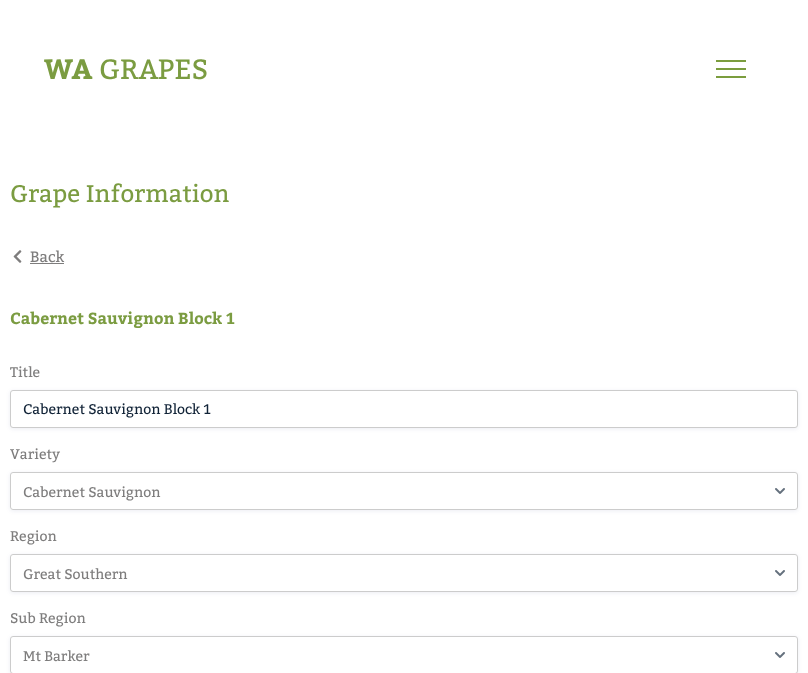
<!DOCTYPE html>
<meta charset="utf-8">
<style>body { margin: 0 } canvas { display: block }</style>
<canvas id="canvas" width="808" height="673"></canvas>
<img id="img1" src="images/1.png" hidden>
<img id="img2" src="images/2.png" hidden>
<script>
window.onload = function () {
    const canvas = document.getElementById('canvas');
    const context = canvas.getContext('2d');
    context.miterLimit = 4;
    context.fontKerning = 'normal';

    context.fillStyle = 'rgb(255, 255, 255)';
    context.fillRect(0, 0, 808, 673);
    context.fillStyle = 'rgb(123, 157, 62)';
    context.fillRect(716, 60, 30, 2);
    context.fillRect(716, 68, 30, 2);
    context.fillRect(716, 76, 30, 2);
    context.drawImage(document.getElementById('img1'), 13, 250, 9, 13);
    context.fillStyle = 'rgb(126, 125, 125)';
    context.fillRect(30, 263, 34, 1);
    context.fillStyle = 'rgba(18, 25, 97, 0.08)';
    context.filter = 'blur(2px)';
    context.beginPath();
    context.roundRect(10, 391, 788, 38, 3);
    context.fill();
    context.filter = 'none';
    context.fillStyle = 'rgb(255, 255, 255)';
    context.beginPath();
    context.roundRect(10.5, 390.5, 787, 37, 2.5);
    context.fill();
    context.strokeStyle = 'rgb(204, 204, 204)';
    context.stroke();
    context.fillStyle = 'rgba(18, 25, 97, 0.08)';
    context.filter = 'blur(2px)';
    context.beginPath();
    context.roundRect(10, 473, 788, 38, 3);
    context.fill();
    context.filter = 'none';
    context.fillStyle = 'rgb(255, 255, 255)';
    context.beginPath();
    context.roundRect(10, 472, 788, 38, 3);
    context.fill();
    context.drawImage(document.getElementById('img2'), 775, 488, 10, 6);
    context.beginPath();
    context.roundRect(10.5, 472.5, 787, 37, 2.5);
    context.stroke();
    context.fillStyle = 'rgba(18, 25, 97, 0.08)';
    context.filter = 'blur(2px)';
    context.beginPath();
    context.roundRect(10, 555, 788, 38, 3);
    context.fill();
    context.filter = 'none';
    context.fillStyle = 'rgb(255, 255, 255)';
    context.beginPath();
    context.roundRect(10, 554, 788, 38, 3);
    context.fill();
    context.drawImage(document.getElementById('img2'), 775, 570, 10, 6);
    context.beginPath();
    context.roundRect(10.5, 554.5, 787, 37, 2.5);
    context.stroke();
    context.fillStyle = 'rgba(18, 25, 97, 0.08)';
    context.filter = 'blur(2px)';
    context.beginPath();
    context.roundRect(10, 637, 788, 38, 3);
    context.fill();
    context.filter = 'none';
    context.fillStyle = 'rgb(255, 255, 255)';
    context.beginPath();
    context.roundRect(10, 636, 788, 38, 3);
    context.fill();
    context.drawImage(document.getElementById('img2'), 775, 652, 10, 6);
    context.beginPath();
    context.roundRect(10.5, 636.5, 787, 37, 2.5);
    context.stroke();
    context.font = 'bold 28px Bitter';
    context.fillStyle = 'rgb(123, 156, 65)';
    context.fillText('WA', 44, 79);
    context.font = '28px Bitter';
    context.fillText('GRAPES', 99, 79);
    context.font = '24px Bitter';
    context.fillText('Grape Information', 10, 202);
    context.font = '15px Bitter';
    context.fillStyle = 'rgb(126, 125, 125)';
    context.fillText('Back', 30, 262);
    context.font = 'bold 16px Bitter';
    context.fillStyle = 'rgb(123, 156, 65)';
    context.fillText('Cabernet Sauvignon Block 1', 10, 324);
    context.font = '14px Bitter';
    context.fillStyle = 'rgb(126, 125, 125)';
    context.fillText('Title', 10, 377);
    context.fillStyle = 'rgb(17, 35, 55)';
    context.fillText('Cabernet Sauvignon Block 1', 23, 414);
    context.fillStyle = 'rgb(126, 125, 125)';
    context.fillText('Variety', 10, 459);
    context.fillText('Cabernet Sauvignon', 23, 497);
    context.fillText('Region', 10, 541);
    context.fillText('Great Southern', 23, 579);
    context.fillText('Sub Region', 10, 623);
    context.fillText('Mt Barker', 23, 661);
};
</script>
